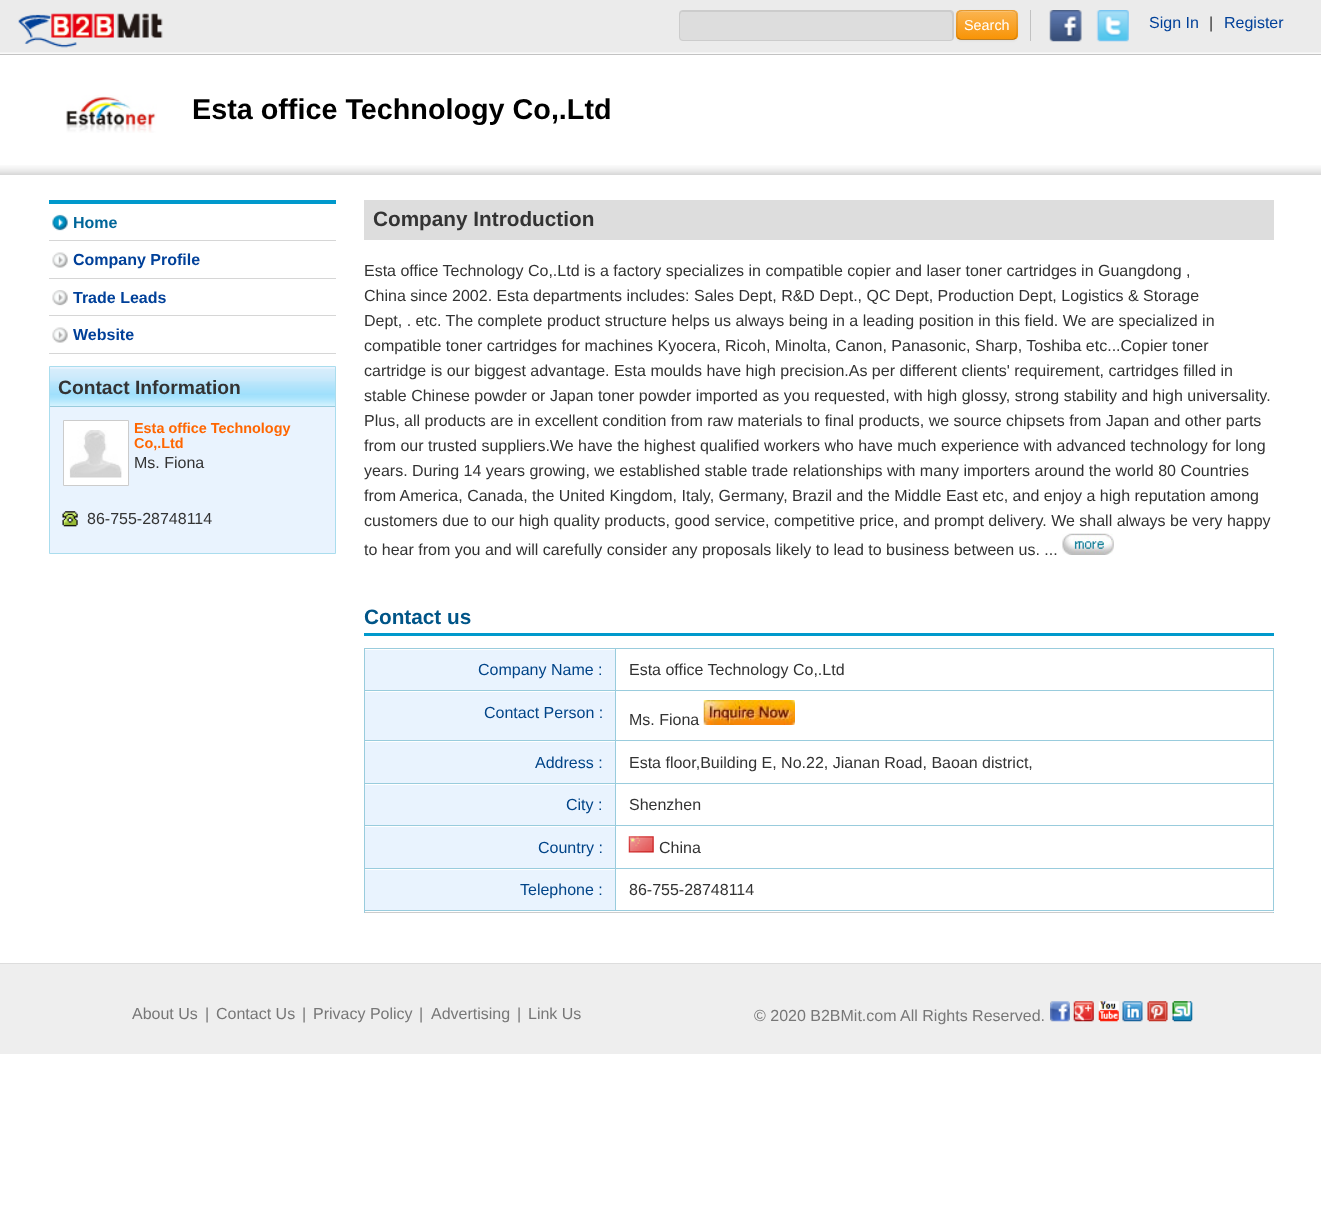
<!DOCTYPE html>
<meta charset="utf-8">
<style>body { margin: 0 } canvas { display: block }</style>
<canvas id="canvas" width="1321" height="1219"></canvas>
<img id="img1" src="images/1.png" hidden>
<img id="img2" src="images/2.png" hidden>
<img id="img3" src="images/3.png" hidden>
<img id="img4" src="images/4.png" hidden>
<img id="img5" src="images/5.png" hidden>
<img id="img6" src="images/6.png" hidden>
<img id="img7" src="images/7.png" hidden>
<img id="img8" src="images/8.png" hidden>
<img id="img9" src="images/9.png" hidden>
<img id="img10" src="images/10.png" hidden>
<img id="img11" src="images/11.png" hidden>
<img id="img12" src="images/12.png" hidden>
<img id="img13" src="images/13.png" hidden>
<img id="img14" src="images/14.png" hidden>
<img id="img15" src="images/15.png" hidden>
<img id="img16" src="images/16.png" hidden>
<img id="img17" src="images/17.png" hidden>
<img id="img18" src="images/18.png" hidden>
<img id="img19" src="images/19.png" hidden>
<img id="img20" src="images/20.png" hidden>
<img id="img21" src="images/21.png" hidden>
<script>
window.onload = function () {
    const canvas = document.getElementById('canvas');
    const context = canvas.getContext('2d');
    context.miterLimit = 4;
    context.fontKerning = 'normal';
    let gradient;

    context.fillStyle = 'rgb(255, 255, 255)';
    context.fillRect(0, 0, 1321, 1219);
    context.fillStyle = 'rgb(235, 235, 235)';
    context.fillRect(0, 0, 1321, 54);
    context.drawImage(document.getElementById('img1'), 0, 52, 1321, 2);
    context.fillStyle = 'rgb(194, 194, 194)';
    context.fillRect(0, 54, 1321, 1);
    context.drawImage(document.getElementById('img2'), 18, 13, 145, 35);
    context.fillStyle = 'rgb(221, 221, 221)';
    context.beginPath();
    context.roundRect(679, 10, 275, 31, 4);
    context.fill();
    context.fillStyle = 'rgb(204, 204, 204)';
    context.beginPath();
    context.moveTo(682, 12);
    context.lineTo(950, 12);
    context.bezierCurveTo(953, 12, 952, 22, 952, 23);
    context.lineTo(952, 40);
    context.bezierCurveTo(953, 39, 953, 38, 953, 38);
    context.lineTo(953, 14);
    context.bezierCurveTo(953, 12, 952, 11, 950, 11);
    context.lineTo(682, 11);
    context.bezierCurveTo(681, 11, 680, 12, 680, 14);
    context.lineTo(680, 15);
    context.bezierCurveTo(680, 14, 681, 12, 682, 12);
    context.closePath();
    context.fill();
    context.beginPath();
    context.roundRect(679.5, 10.5, 274, 30, 3.5);
    context.strokeStyle = 'rgb(204, 204, 204)';
    context.stroke();
    context.fillStyle = 'rgba(0, 0, 0, 0.05)';
    context.filter = 'blur(1px)';
    context.beginPath();
    context.roundRect(956, 11, 62, 30, 5);
    context.fill();
    context.filter = 'none';
    context.fillStyle = 'rgb(250, 167, 50)';
    context.beginPath();
    context.roundRect(956, 10, 62, 30, 5);
    context.fill();
    context.save();
    context.beginPath();
    context.roundRect(956, 10, 62, 30, 5);
    context.clip();
    gradient = context.createLinearGradient(987, 11, 987, 39);
    gradient.addColorStop(0, 'rgb(251, 180, 80)');
    gradient.addColorStop(1, 'rgb(248, 148, 6)');
    context.fillStyle = gradient;
    context.fillRect(956, 11, 62, 28);
    context.restore();
    context.fillStyle = 'rgba(255, 255, 255, 0.2)';
    context.beginPath();
    context.moveTo(961, 12);
    context.lineTo(1012, 12);
    context.bezierCurveTo(1015, 12, 1016, 14, 1016, 16);
    context.bezierCurveTo(1016, 9, 1009, 11, 1004, 11);
    context.lineTo(970, 11);
    context.bezierCurveTo(965, 11, 958, 9, 958, 16);
    context.bezierCurveTo(958, 14, 959, 12, 961, 12);
    context.closePath();
    context.fill();
    context.beginPath();
    context.moveTo(1015.5, 38);
    context.bezierCurveTo(1015, 39, 1013.5, 39.5, 1012.5, 39.5);
    context.lineTo(961, 39.5);
    context.bezierCurveTo(960, 39.5, 959, 39, 958, 38);
    context.strokeStyle = 'rgba(0, 0, 0, 0.25)';
    context.lineWidth = 1.2;
    context.stroke();
    context.beginPath();
    context.moveTo(958, 38);
    context.bezierCurveTo(955.5, 35.5, 957, 28, 957, 25);
    context.bezierCurveTo(957, 10.5, 955, 10.5, 970, 10.5);
    context.lineTo(1004, 10.5);
    context.bezierCurveTo(1018.5, 10.5, 1017, 10.5, 1017, 25);
    context.bezierCurveTo(1017, 28, 1018, 35.5, 1015.5, 38);
    context.strokeStyle = 'rgba(0, 0, 0, 0.1)';
    context.stroke();
    context.fillStyle = 'rgb(194, 194, 194)';
    context.fillRect(1030, 10, 1, 31);
    context.drawImage(document.getElementById('img3'), 1049, 10, 33, 32);
    context.drawImage(document.getElementById('img4'), 1096, 10, 33, 32);
    context.drawImage(document.getElementById('img5'), 0, 165, 1321, 10);
    context.drawImage(document.getElementById('img6'), 66, 95, 91, 38);
    context.fillStyle = 'rgb(0, 153, 204)';
    context.fillRect(49, 200, 287, 4);
    context.fillStyle = 'rgb(214, 214, 214)';
    context.fillRect(49, 240, 287, 1);
    context.drawImage(document.getElementById('img7'), 52, 214, 16, 17);
    context.fillRect(49, 278, 287, 1);
    context.drawImage(document.getElementById('img8'), 52, 252, 16, 16);
    context.fillRect(49, 315, 287, 1);
    context.drawImage(document.getElementById('img9'), 52, 290, 16, 16);
    context.fillRect(49, 353, 287, 1);
    context.drawImage(document.getElementById('img8'), 52, 327, 16, 16);
    context.fillStyle = 'rgb(233, 243, 254)';
    context.beginPath();
    context.rect(49.5, 366.5, 286, 187);
    context.fill();
    context.strokeStyle = 'rgb(170, 221, 238)';
    context.lineWidth = 1;
    context.stroke();
    context.drawImage(document.getElementById('img10'), 50, 368, 285, 38);
    context.fillStyle = 'rgb(153, 204, 221)';
    context.fillRect(50, 406, 285, 1);
    context.fillStyle = 'rgb(255, 255, 255)';
    context.beginPath();
    context.rect(63.5, 420.5, 65, 65);
    context.fill();
    context.strokeStyle = 'rgb(204, 204, 204)';
    context.stroke();
    context.drawImage(document.getElementById('img11'), 69, 430, 53, 48);
    context.drawImage(document.getElementById('img12'), 62, 511, 16, 16);
    context.fillStyle = 'rgb(221, 221, 221)';
    context.fillRect(364, 200, 910, 40);
    context.drawImage(document.getElementById('img13'), 1062, 533, 52, 22);
    context.fillStyle = 'rgb(0, 153, 204)';
    context.fillRect(364, 633, 910, 3);
    context.fillStyle = 'rgb(204, 204, 204)';
    context.fillRect(365, 912, 908, 1);
    context.fillStyle = 'rgb(153, 204, 221)';
    context.fillRect(364, 648, 910, 1);
    context.fillRect(1273, 648, 1, 265);
    context.fillStyle = 'rgb(255, 255, 255)';
    context.fillRect(1273, 911, 1, 1);
    context.fillStyle = 'rgb(153, 204, 221)';
    context.fillRect(364, 648, 1, 265);
    context.fillStyle = 'rgb(233, 243, 254)';
    context.fillRect(365, 650, 250, 40);
    context.fillStyle = 'rgb(153, 204, 221)';
    context.fillRect(615, 649, 1, 262);
    context.fillRect(365, 690, 908, 1);
    context.fillStyle = 'rgb(233, 243, 254)';
    context.fillRect(365, 692, 250, 48);
    context.fillStyle = 'rgb(153, 204, 221)';
    context.fillRect(365, 740, 908, 1);
    context.drawImage(document.getElementById('img14'), 703, 700, 92, 25);
    context.fillStyle = 'rgb(233, 243, 254)';
    context.fillRect(365, 742, 250, 41);
    context.fillStyle = 'rgb(153, 204, 221)';
    context.fillRect(365, 783, 908, 1);
    context.fillStyle = 'rgb(233, 243, 254)';
    context.fillRect(365, 785, 250, 40);
    context.fillStyle = 'rgb(153, 204, 221)';
    context.fillRect(365, 825, 908, 1);
    context.fillStyle = 'rgb(233, 243, 254)';
    context.fillRect(365, 827, 250, 41);
    context.fillStyle = 'rgb(153, 204, 221)';
    context.fillRect(365, 868, 908, 1);
    context.drawImage(document.getElementById('img15'), 628, 836, 26, 17);
    context.fillStyle = 'rgb(233, 243, 254)';
    context.fillRect(365, 870, 250, 40);
    context.fillStyle = 'rgb(153, 204, 221)';
    context.fillRect(365, 910, 908, 1);
    context.fillStyle = 'rgb(238, 238, 238)';
    context.fillRect(0, 964, 1321, 90);
    context.fillStyle = 'rgb(221, 221, 221)';
    context.fillRect(0, 963, 1321, 1);
    context.drawImage(document.getElementById('img16'), 1050, 1001, 20, 21);
    context.drawImage(document.getElementById('img17'), 1073, 1001, 21, 21);
    context.drawImage(document.getElementById('img18'), 1098, 1001, 21, 21);
    context.drawImage(document.getElementById('img19'), 1122, 1001, 21, 21);
    context.drawImage(document.getElementById('img20'), 1147, 1001, 21, 21);
    context.drawImage(document.getElementById('img21'), 1172, 1001, 21, 21);
    context.font = '14.4px Liberation Sans';
    context.fillStyle = 'rgb(255, 255, 255)';
    context.fillText('Search', 964, 30);
    context.font = '16px Liberation Sans';
    context.fillStyle = 'rgb(0, 64, 153)';
    context.fillText('Sign In', 1149, 28);
    context.fillStyle = 'rgb(51, 51, 51)';
    context.fillText('|', 1209, 28);
    context.fillStyle = 'rgb(0, 64, 153)';
    context.fillText('Register', 1224, 28);
    context.font = 'bold 28.75px Liberation Sans';
    context.fillStyle = 'rgb(0, 0, 0)';
    context.fillText('Esta office Technology Co,.Ltd', 192, 119);
    context.font = 'bold 16px Liberation Sans';
    context.fillStyle = 'rgb(0, 102, 153)';
    context.fillText('Home', 73, 228);
    context.fillStyle = 'rgb(0, 64, 153)';
    context.fillText('Company Profile', 73, 265);
    context.fillText('Trade Leads', 73, 303);
    context.fillText('Website', 73, 340);
    context.font = 'bold 19.25px Liberation Sans';
    context.fillStyle = 'rgb(51, 51, 51)';
    context.fillText('Contact Information', 58, 394);
    context.font = 'bold 14.4px Liberation Sans';
    context.fillStyle = 'rgb(255, 102, 0)';
    context.fillText('Esta office Technology', 134, 433);
    context.fillText('Co,.Ltd', 134, 448);
    context.font = '16px Liberation Sans';
    context.fillStyle = 'rgb(51, 51, 51)';
    context.fillText('Ms. Fiona', 134, 468);
    context.fillText('86-755-28748114', 87, 524);
    context.font = 'bold 20.75px Liberation Sans';
    context.fillText('Company Introduction', 373, 226);
    context.font = '16px Liberation Sans';
    context.fillText('Esta office Technology Co,.Ltd is a factory specializes in compatible copier and laser toner cartridges in Guangdong ,', 364, 276);
    context.fillText('China since 2002. Esta departments includes: Sales Dept, R&D Dept., QC Dept, Production Dept, Logistics & Storage', 364, 301);
    context.fillText('Dept, . etc. The complete product structure helps us always being in a leading position in this field. We are specialized in', 364, 326);
    context.fillText('compatible toner cartridges for machines Kyocera, Ricoh, Minolta, Canon, Panasonic, Sharp, Toshiba etc...Copier toner', 364, 351);
    context.fillText('cartridge is our biggest advantage. Esta moulds have high precision.As per different clients\' requirement, cartridges filled in', 364, 376);
    context.fillText('stable Chinese powder or Japan toner powder imported as you requested, with high glossy, strong stability and high universality.', 364, 401);
    context.fillText('Plus, all products are in excellent condition from raw materials to final products, we source chipsets from Japan and other parts', 364, 426);
    context.fillText('from our trusted suppliers.We have the highest qualified workers who have much experience with advanced technology for long', 364, 451);
    context.fillText('years. During 14 years growing, we established stable trade relationships with many importers around the world 80 Countries', 364, 476);
    context.fillText('from America, Canada, the United Kingdom, Italy, Germany, Brazil and the Middle East etc, and enjoy a high reputation among', 364, 501);
    context.fillText('customers due to our high quality products, good service, competitive price, and prompt delivery. We shall always be very happy', 364, 526);
    context.fillText('to hear from you and will carefully consider any proposals likely to lead to business between us. ...', 364, 555);
    context.font = 'bold 20.75px Liberation Sans';
    context.fillStyle = 'rgb(0, 85, 136)';
    context.fillText('Contact us', 364, 624);
    context.font = '16px Liberation Sans';
    context.fillStyle = 'rgb(0, 68, 136)';
    context.fillText('Company Name :', 478, 675);
    context.fillStyle = 'rgb(51, 51, 51)';
    context.fillText('Esta office Technology Co,.Ltd', 629, 675);
    context.fillStyle = 'rgb(0, 68, 136)';
    context.fillText('Contact Person :', 484, 718);
    context.fillStyle = 'rgb(51, 51, 51)';
    context.fillText('Ms. Fiona', 629, 725);
    context.fillStyle = 'rgb(0, 68, 136)';
    context.fillText('Address :', 535, 768);
    context.fillStyle = 'rgb(51, 51, 51)';
    context.fillText('Esta floor,Building E, No.22, Jianan Road, Baoan district,', 629, 768);
    context.fillStyle = 'rgb(0, 68, 136)';
    context.fillText('City :', 566, 810);
    context.fillStyle = 'rgb(51, 51, 51)';
    context.fillText('Shenzhen', 629, 810);
    context.fillStyle = 'rgb(0, 68, 136)';
    context.fillText('Country :', 538, 853);
    context.fillStyle = 'rgb(51, 51, 51)';
    context.fillText('China', 659, 853);
    context.fillStyle = 'rgb(0, 68, 136)';
    context.fillText('Telephone :', 520, 895);
    context.fillStyle = 'rgb(51, 51, 51)';
    context.fillText('86-755-28748114', 629, 895);
    context.fillStyle = 'rgb(119, 119, 119)';
    context.fillText('About Us', 132, 1019);
    context.fillText('|', 205, 1019);
    context.fillText('Contact Us', 216, 1019);
    context.fillText('|', 302, 1019);
    context.fillText('Privacy Policy', 313, 1019);
    context.fillText('|', 419, 1019);
    context.fillText('Advertising', 431, 1019);
    context.fillText('|', 517, 1019);
    context.fillText('Link Us', 528, 1019);
    context.fillText('© 2020 B2BMit.com All Rights Reserved.', 754, 1021);
};
</script>
